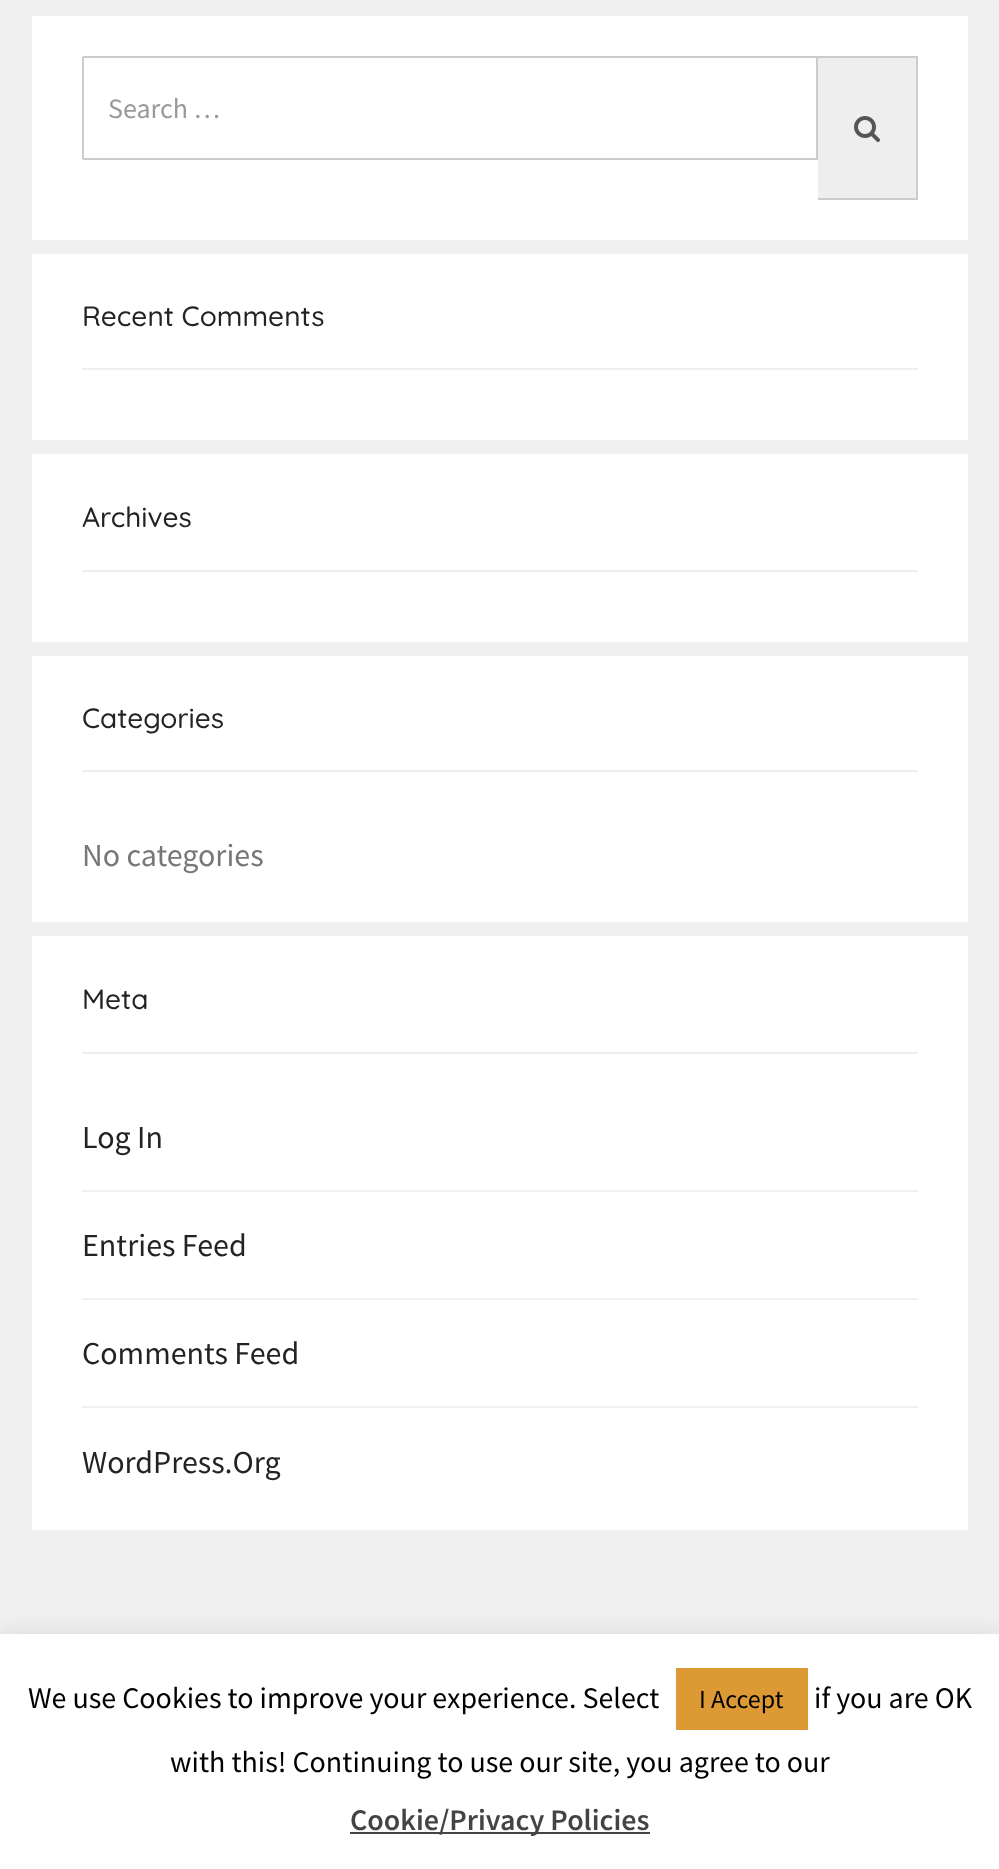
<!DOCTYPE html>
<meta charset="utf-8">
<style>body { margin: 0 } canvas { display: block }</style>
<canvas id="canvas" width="999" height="1869"></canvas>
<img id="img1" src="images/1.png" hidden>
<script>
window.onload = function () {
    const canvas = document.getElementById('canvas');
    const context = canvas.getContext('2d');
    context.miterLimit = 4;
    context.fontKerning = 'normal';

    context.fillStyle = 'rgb(240, 240, 240)';
    context.fillRect(0, 0, 999, 1869);
    context.fillStyle = 'rgb(255, 255, 255)';
    context.fillRect(32, 16, 936, 224);
    context.beginPath();
    context.roundRect(83, 57, 734, 102, [1, 0, 0, 1]);
    context.strokeStyle = 'rgb(204, 204, 204)';
    context.lineWidth = 2;
    context.stroke();
    context.fillStyle = 'rgb(238, 238, 238)';
    context.fillRect(818, 58, 98, 140);
    context.fillStyle = 'rgb(204, 204, 204)';
    context.fillRect(818, 56, 100, 2);
    context.fillRect(916, 56, 2, 144);
    context.fillRect(818, 198, 100, 2);
    context.drawImage(document.getElementById('img1'), 854, 116, 26, 26);
    context.fillStyle = 'rgb(255, 255, 255)';
    context.fillRect(32, 254, 936, 186);
    context.fillStyle = 'rgb(238, 238, 238)';
    context.fillRect(82, 368, 836, 2);
    context.fillStyle = 'rgb(255, 255, 255)';
    context.fillRect(32, 454, 936, 188);
    context.fillStyle = 'rgb(238, 238, 238)';
    context.fillRect(82, 570, 836, 2);
    context.fillStyle = 'rgb(255, 255, 255)';
    context.fillRect(32, 656, 936, 266);
    context.fillStyle = 'rgb(238, 238, 238)';
    context.fillRect(82, 770, 836, 2);
    context.fillStyle = 'rgb(255, 255, 255)';
    context.fillRect(32, 936, 936, 594);
    context.fillStyle = 'rgb(238, 238, 238)';
    context.fillRect(82, 1052, 836, 2);
    context.fillStyle = 'rgb(241, 241, 241)';
    context.fillRect(82, 1190, 836, 2);
    context.fillRect(82, 1298, 836, 2);
    context.fillRect(82, 1406, 836, 2);
    context.fillStyle = 'rgba(172, 171, 171, 0.3)';
    context.filter = 'blur(10px)';
    context.beginPath();
    context.rect(0, 1632, 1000, 236);
    context.fill();
    context.filter = 'none';
    context.fillStyle = 'rgb(255, 255, 255)';
    context.fillRect(0, 1634, 999, 235);
    context.fillStyle = 'rgb(221, 153, 51)';
    context.fillRect(676, 1668, 132, 62);
    context.fillStyle = 'rgb(68, 68, 68)';
    context.fillRect(350, 1832, 300, 2);
    context.font = '28px Source Sans Pro';
    context.fillStyle = 'rgb(153, 153, 153)';
    context.fillText('Search …', 108, 118);
    context.font = '500 28px Quicksand';
    context.fillStyle = 'rgb(35, 35, 35)';
    context.fillText('Recent Comments', 82, 326);
    context.fillText('Archives', 82, 527);
    context.fillText('Categories', 82, 728);
    context.font = '32px Source Sans Pro';
    context.fillStyle = 'rgb(119, 119, 119)';
    context.fillText('No categories', 82, 866);
    context.font = '500 28px Quicksand';
    context.fillStyle = 'rgb(35, 35, 35)';
    context.fillText('Meta', 82, 1009);
    context.font = '32px Source Sans Pro';
    context.fillText('Log In', 82, 1148);
    context.fillText('Entries Feed', 82, 1256);
    context.fillText('Comments Feed', 82, 1364);
    context.fillText('WordPress.Org', 82, 1473);
    context.font = '30px Source Sans Pro';
    context.fillStyle = 'rgb(0, 0, 0)';
    context.fillText('We use Cookies to improve your experience. Select', 28, 1708);
    context.font = '26px Source Sans Pro';
    context.fillText('I Accept', 699, 1708);
    context.font = '30px Source Sans Pro';
    context.fillText('if you are OK', 814, 1708);
    context.fillText('with this! Continuing to use our site, you agree to our', 170, 1772);
    context.font = '600 30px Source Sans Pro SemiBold';
    context.fillStyle = 'rgb(68, 68, 68)';
    context.fillText('Cookie/Privacy Policies', 350, 1830);
};
</script>
